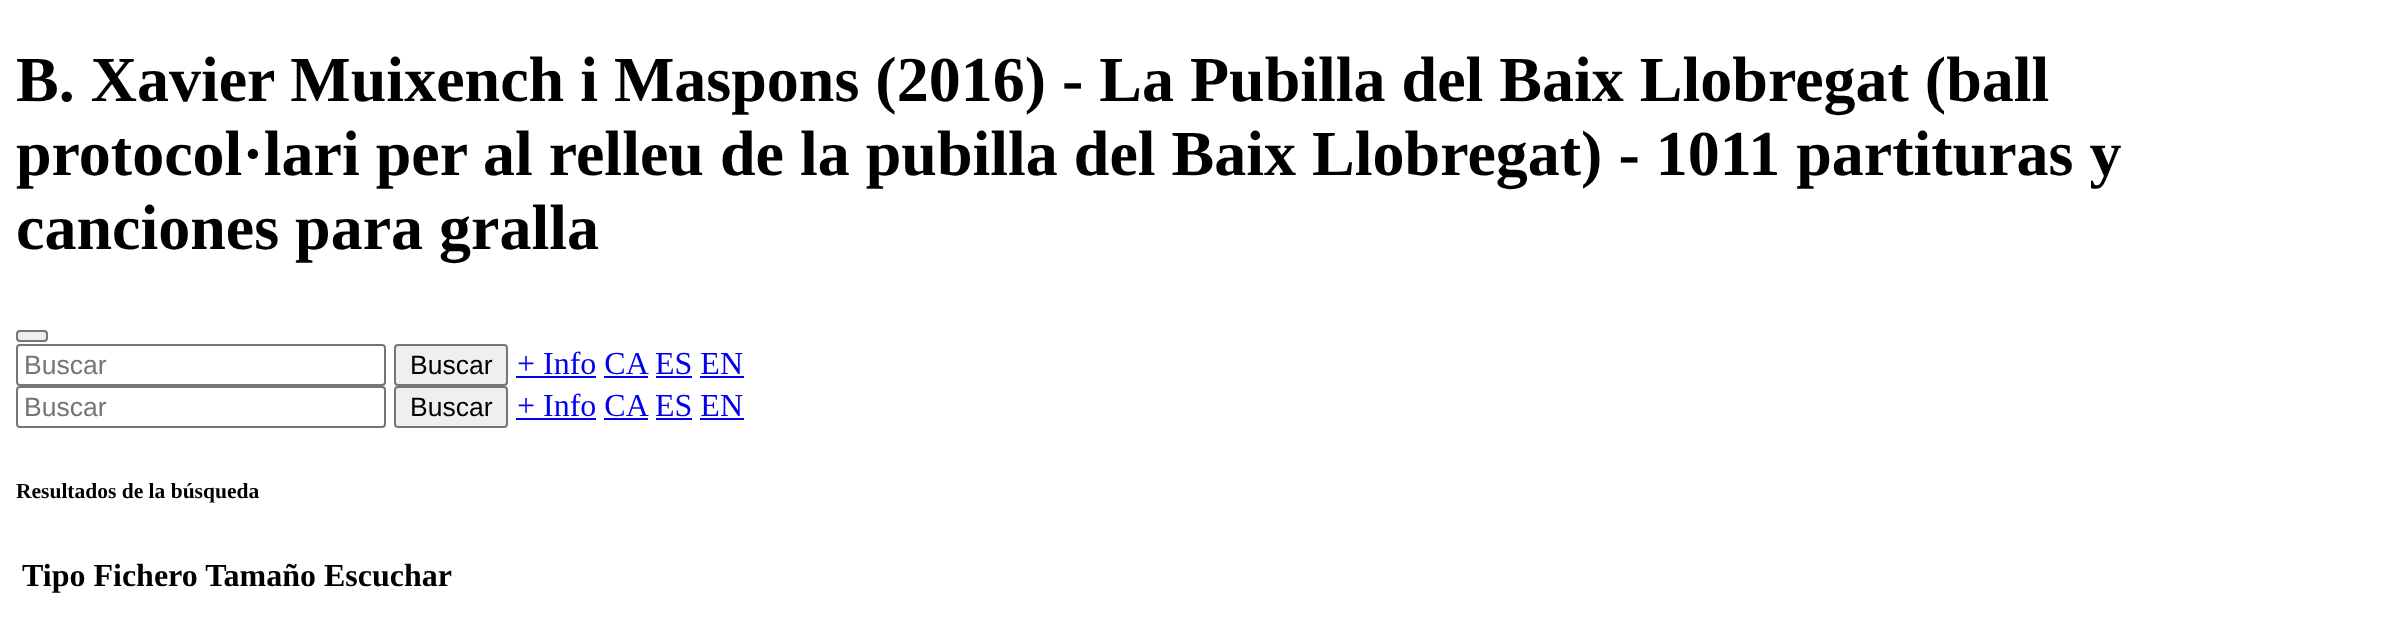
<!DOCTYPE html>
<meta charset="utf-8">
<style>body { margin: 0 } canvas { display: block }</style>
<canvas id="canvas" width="2403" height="644"></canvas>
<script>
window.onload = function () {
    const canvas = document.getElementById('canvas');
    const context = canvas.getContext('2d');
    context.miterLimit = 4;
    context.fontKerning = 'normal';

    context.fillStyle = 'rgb(255, 255, 255)';
    context.fillRect(0, 0, 2403, 644);
    context.fillStyle = 'rgb(239, 239, 239)';
    context.beginPath();
    context.roundRect(17, 331, 30, 10, 3);
    context.fill();
    context.strokeStyle = 'rgb(118, 118, 118)';
    context.lineWidth = 2;
    context.stroke();
    context.beginPath();
    context.roundRect(17, 345, 368, 40, 3);
    context.stroke();
    context.beginPath();
    context.roundRect(395, 345, 112, 40, 3);
    context.fill();
    context.stroke();
    context.fillStyle = 'rgb(0, 0, 238)';
    context.fillRect(516, 376, 80, 2);
    context.fillRect(656, 376, 36, 2);
    context.fillRect(604, 376, 44, 2);
    context.fillRect(700, 376, 44, 2);
    context.beginPath();
    context.roundRect(17, 387, 368, 40, 3);
    context.stroke();
    context.fillStyle = 'rgb(239, 239, 239)';
    context.beginPath();
    context.roundRect(395, 387, 112, 40, 3);
    context.fill();
    context.stroke();
    context.fillStyle = 'rgb(0, 0, 238)';
    context.fillRect(516, 418, 80, 2);
    context.fillRect(656, 418, 36, 2);
    context.fillRect(604, 418, 44, 2);
    context.fillRect(700, 418, 44, 2);
    context.font = 'bold 64px Liberation Serif';
    context.fillStyle = 'rgb(0, 0, 0)';
    context.fillText('B. Xavier Muixench i Maspons (2016) - La Pubilla del Baix Llobregat (ball', 16, 101);
    context.fillText('protocol·lari per al relleu de la pubilla del Baix Llobregat) - 1011 partituras y', 16, 175);
    context.fillText('canciones para gralla', 16, 249);
    context.font = '26.5px Liberation Sans';
    context.fillStyle = 'rgb(117, 117, 117)';
    context.fillText('Buscar', 24, 374);
    context.fillStyle = 'rgb(0, 0, 0)';
    context.fillText('Buscar', 410, 374);
    context.font = '32px Liberation Serif';
    context.fillStyle = 'rgb(0, 0, 238)';
    context.fillText('+ Info CA', 517, 374);
    context.fillText('ES EN', 655, 374);
    context.font = '26.5px Liberation Sans';
    context.fillStyle = 'rgb(117, 117, 117)';
    context.fillText('Buscar', 24, 416);
    context.fillStyle = 'rgb(0, 0, 0)';
    context.fillText('Buscar', 410, 416);
    context.font = '32px Liberation Serif';
    context.fillStyle = 'rgb(0, 0, 238)';
    context.fillText('+ Info CA', 517, 416);
    context.fillText('ES EN', 655, 416);
    context.font = 'bold 21.5px Liberation Serif';
    context.fillStyle = 'rgb(0, 0, 0)';
    context.fillText('Resultados de la búsqueda', 16, 498);
    context.font = 'bold 32px Liberation Serif';
    context.fillText('Tipo Fichero Tamaño Escuchar', 22, 586);
};
</script>
